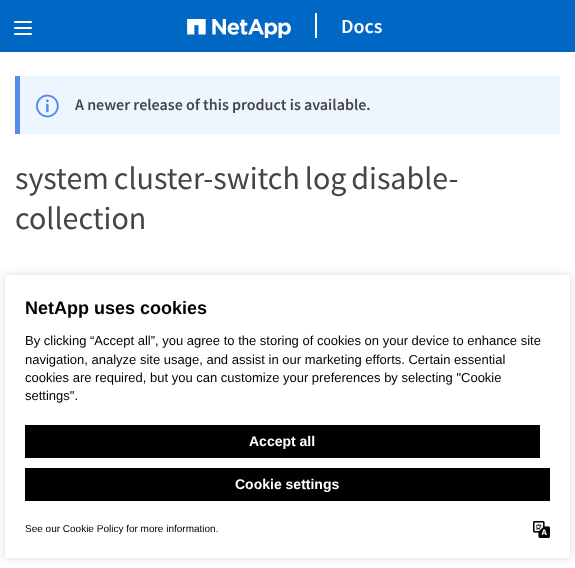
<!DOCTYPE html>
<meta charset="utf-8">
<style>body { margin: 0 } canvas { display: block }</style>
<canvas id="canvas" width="575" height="568"></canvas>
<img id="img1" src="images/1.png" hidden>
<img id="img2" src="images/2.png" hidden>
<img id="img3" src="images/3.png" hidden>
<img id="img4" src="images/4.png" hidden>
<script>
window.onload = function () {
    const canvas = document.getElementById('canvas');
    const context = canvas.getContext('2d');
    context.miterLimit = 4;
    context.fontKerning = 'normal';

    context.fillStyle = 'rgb(255, 255, 255)';
    context.fillRect(0, 0, 575, 568);
    context.fillStyle = 'rgb(0, 103, 197)';
    context.fillRect(0, 0, 575, 52);
    context.drawImage(document.getElementById('img1'), 14, 21, 18, 14);
    context.drawImage(document.getElementById('img2'), 187, 19, 104, 19);
    context.fillStyle = 'rgb(255, 255, 255)';
    context.fillRect(315, 13, 2, 25);
    context.fillStyle = 'rgb(237, 246, 255)';
    context.fillRect(20, 76, 540, 58);
    context.fillStyle = 'rgb(81, 139, 236)';
    context.fillRect(15, 76, 5, 58);
    context.drawImage(document.getElementById('img3'), 36, 94, 23, 24);
    context.fillStyle = 'rgba(0, 0, 0, 0.15)';
    context.filter = 'blur(4px)';
    context.beginPath();
    context.rect(5, 275, 565, 283);
    context.fill();
    context.filter = 'none';
    context.fillStyle = 'rgb(255, 255, 255)';
    context.fillRect(5, 275, 565, 283);
    context.fillStyle = 'rgb(0, 0, 0)';
    context.fillRect(25, 425, 515, 33);
    context.fillRect(25, 468, 525, 33);
    context.drawImage(document.getElementById('img4'), 533, 521, 17, 17);
    context.font = '600 20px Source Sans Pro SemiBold';
    context.fillStyle = 'rgb(255, 255, 255)';
    context.fillText('Docs', 341, 33);
    context.font = '600 16px Source Sans Pro SemiBold';
    context.fillStyle = 'rgb(69, 69, 69)';
    context.fillText('A newer release of this product is available.', 75, 110);
    context.wordSpacing = '-1.5px';
    context.font = '32px Source Sans Pro';
    context.fillText('system cluster-switch log disable-', 15, 189);
    context.wordSpacing = '0px';
    context.fillText('collection', 15, 229);
    context.font = 'bold 18px Liberation Sans';
    context.fillStyle = 'rgb(0, 0, 0)';
    context.fillText('NetApp uses cookies', 25, 314);
    context.font = '13px Liberation Sans';
    context.fillText('By clicking “Accept all”, you agree to the storing of cookies on your device to enhance site', 25, 345);
    context.fillText('navigation, analyze site usage, and assist in our marketing efforts. Certain essential', 25, 364);
    context.fillText('cookies are required, but you can customize your preferences by selecting "Cookie', 25, 382);
    context.fillText('settings".', 25, 400);
    context.font = 'bold 14px Liberation Sans';
    context.fillStyle = 'rgb(255, 255, 255)';
    context.fillText('Accept all', 249, 446);
    context.fillText('Cookie settings', 235, 489);
    context.font = '10px Liberation Sans';
    context.fillStyle = 'rgb(0, 0, 0)';
    context.fillText('See our Cookie Policy for more information.', 25, 532);
};
</script>
